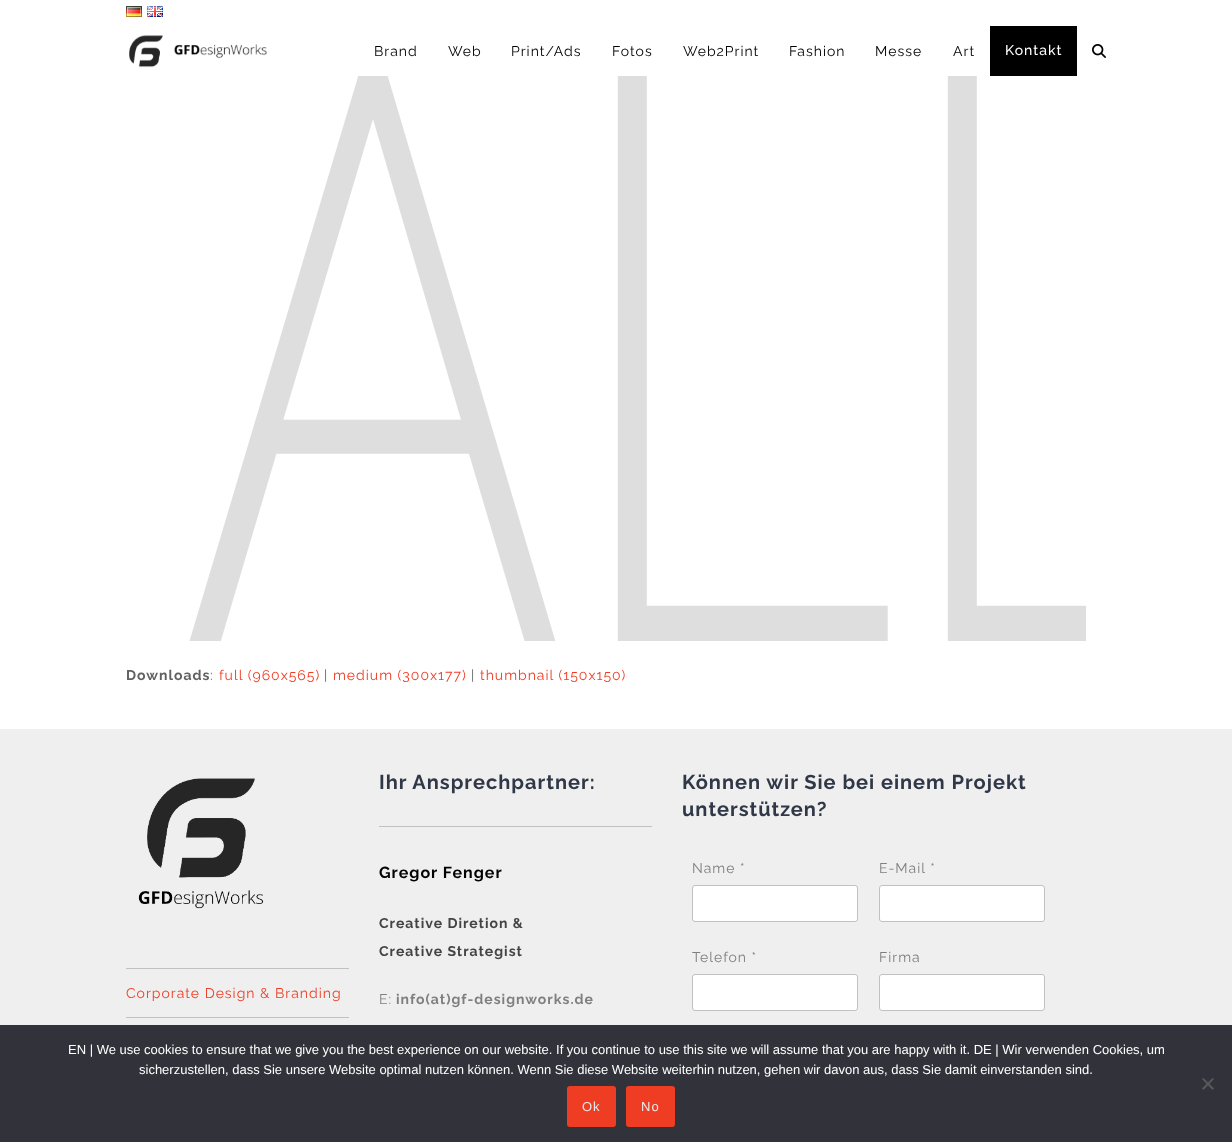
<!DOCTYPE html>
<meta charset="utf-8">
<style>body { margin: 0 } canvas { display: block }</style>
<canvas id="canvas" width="1232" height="1142"></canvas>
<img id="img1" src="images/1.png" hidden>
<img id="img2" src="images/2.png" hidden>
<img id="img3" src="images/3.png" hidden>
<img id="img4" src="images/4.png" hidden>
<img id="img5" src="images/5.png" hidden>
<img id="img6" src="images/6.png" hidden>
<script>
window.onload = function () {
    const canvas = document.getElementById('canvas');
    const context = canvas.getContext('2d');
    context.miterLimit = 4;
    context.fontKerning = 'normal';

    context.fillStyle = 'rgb(255, 255, 255)';
    context.fillRect(0, 0, 1232, 1142);
    context.drawImage(document.getElementById('img1'), 126, 6, 16, 11);
    context.drawImage(document.getElementById('img2'), 147, 6, 16, 11);
    context.drawImage(document.getElementById('img3'), 129, 35, 138, 33);
    context.fillStyle = 'rgb(0, 0, 0)';
    context.fillRect(990, 26, 87, 50);
    context.drawImage(document.getElementById('img4'), 1092, 44, 14, 14);
    context.drawImage(document.getElementById('img5'), 189, 76, 897, 565);
    context.fillStyle = 'rgb(239, 239, 239)';
    context.fillRect(0, 729, 1232, 296);
    context.fillStyle = 'rgb(193, 193, 193)';
    context.fillRect(379, 826, 273, 1);
    context.fillStyle = 'rgb(255, 255, 255)';
    context.beginPath();
    context.roundRect(692.5, 885.5, 165, 36, 2.5);
    context.fill();
    context.strokeStyle = 'rgb(193, 193, 193)';
    context.stroke();
    context.beginPath();
    context.roundRect(879.5, 885.5, 165, 36, 2.5);
    context.fill();
    context.stroke();
    context.beginPath();
    context.roundRect(692.5, 974.5, 165, 36, 2.5);
    context.fill();
    context.stroke();
    context.beginPath();
    context.roundRect(879.5, 974.5, 165, 36, 2.5);
    context.fill();
    context.stroke();
    context.drawImage(document.getElementById('img6'), 138, 778, 126, 131);
    context.fillStyle = 'rgb(193, 193, 193)';
    context.fillRect(126, 968, 223, 1);
    context.fillRect(126, 1017, 223, 1);
    context.fillStyle = 'rgb(50, 50, 58)';
    context.fillRect(0, 1025, 1232, 117);
    context.fillStyle = 'rgb(89, 89, 93)';
    context.beginPath();
    context.moveTo(1212.5, 1078);
    context.lineTo(1214, 1079);
    context.lineTo(1203.5, 1090);
    context.lineTo(1202, 1088.5);
    context.closePath();
    context.fill();
    context.beginPath();
    context.moveTo(1202, 1079);
    context.lineTo(1203.5, 1078);
    context.lineTo(1214, 1088.5);
    context.lineTo(1212.5, 1090);
    context.closePath();
    context.fill();
    context.fillStyle = 'rgb(239, 61, 36)';
    context.beginPath();
    context.roundRect(567, 1086, 49, 41, 3);
    context.fill();
    context.beginPath();
    context.roundRect(626, 1086, 49, 41, 3);
    context.fill();
    context.letterSpacing = '1px';
    context.font = '14px Raleway';
    context.fillStyle = 'rgb(0, 0, 0)';
    context.fillText('Brand', 374, 56);
    context.fillText('Web', 448, 56);
    context.fillText('Print/Ads', 511, 56);
    context.fillText('Fotos', 612, 56);
    context.fillText('Web2Print', 683, 56);
    context.fillText('Fashion', 789, 56);
    context.fillText('Messe', 875, 56);
    context.fillText('Art', 953, 56);
    context.font = '500 14px Raleway';
    context.fillStyle = 'rgb(255, 255, 255)';
    context.fillText('Kontakt', 1005, 55);
    context.font = 'bold 14px Raleway';
    context.fillStyle = 'rgb(97, 97, 97)';
    context.fillText('Downloads', 126, 680);
    context.font = '14px Raleway';
    context.fillText(':', 210, 680);
    context.fillStyle = 'rgb(239, 61, 36)';
    context.fillText('full (960x565)', 219, 680);
    context.fillStyle = 'rgb(97, 97, 97)';
    context.fillText('|', 324, 680);
    context.fillStyle = 'rgb(239, 61, 36)';
    context.fillText('medium (300x177)', 333, 680);
    context.fillStyle = 'rgb(97, 97, 97)';
    context.fillText('|', 471, 680);
    context.fillStyle = 'rgb(239, 61, 36)';
    context.fillText('thumbnail (150x150)', 480, 680);
    context.font = 'bold 20px Raleway';
    context.fillStyle = 'rgb(48, 56, 71)';
    context.fillText('Ihr Ansprechpartner:', 379, 789);
    context.font = 'bold 16px Raleway';
    context.fillStyle = 'rgb(0, 0, 0)';
    context.fillText('Gregor Fenger', 379, 878);
    context.font = 'bold 14px Raleway';
    context.fillStyle = 'rgb(68, 68, 68)';
    context.fillText('Creative Diretion &', 379, 928);
    context.fillText('Creative Strategist', 379, 956);
    context.font = '14px Raleway';
    context.fillStyle = 'rgb(127, 127, 127)';
    context.fillText('E:', 379, 1004);
    context.font = 'bold 14px Raleway';
    context.fillText('info(at)gf-designworks.de', 396, 1004);
    context.font = 'bold 20px Raleway';
    context.fillStyle = 'rgb(48, 56, 71)';
    context.fillText('Können wir Sie bei einem Projekt', 682, 789);
    context.fillText('unterstützen?', 682, 816);
    context.font = '14px Raleway';
    context.fillStyle = 'rgb(127, 127, 127)';
    context.fillText('Name *', 692, 873);
    context.fillText('E-Mail *', 879, 873);
    context.fillText('Telefon *', 692, 962);
    context.fillText('Firma', 879, 962);
    context.fillStyle = 'rgb(239, 61, 36)';
    context.fillText('Corporate Design & Branding', 126, 998);
    context.letterSpacing = '0px';
    context.font = '13px Liberation Sans';
    context.fillStyle = 'rgb(255, 255, 255)';
    context.fillText('EN | We use cookies to ensure that we give you the best experience on our website. If you continue to use this site we will assume that you are happy with it. DE | Wir verwenden Cookies, um', 68, 1054);
    context.fillText('sicherzustellen, dass Sie unsere Website optimal nutzen können. Wenn Sie diese Website weiterhin nutzen, gehen wir davon aus, dass Sie damit einverstanden sind.', 139, 1074);
    context.letterSpacing = '1px';
    context.fillStyle = 'rgb(234, 234, 234)';
    context.fillText('Ok', 582, 1111);
    context.fillText('No', 641, 1111);
};
</script>
